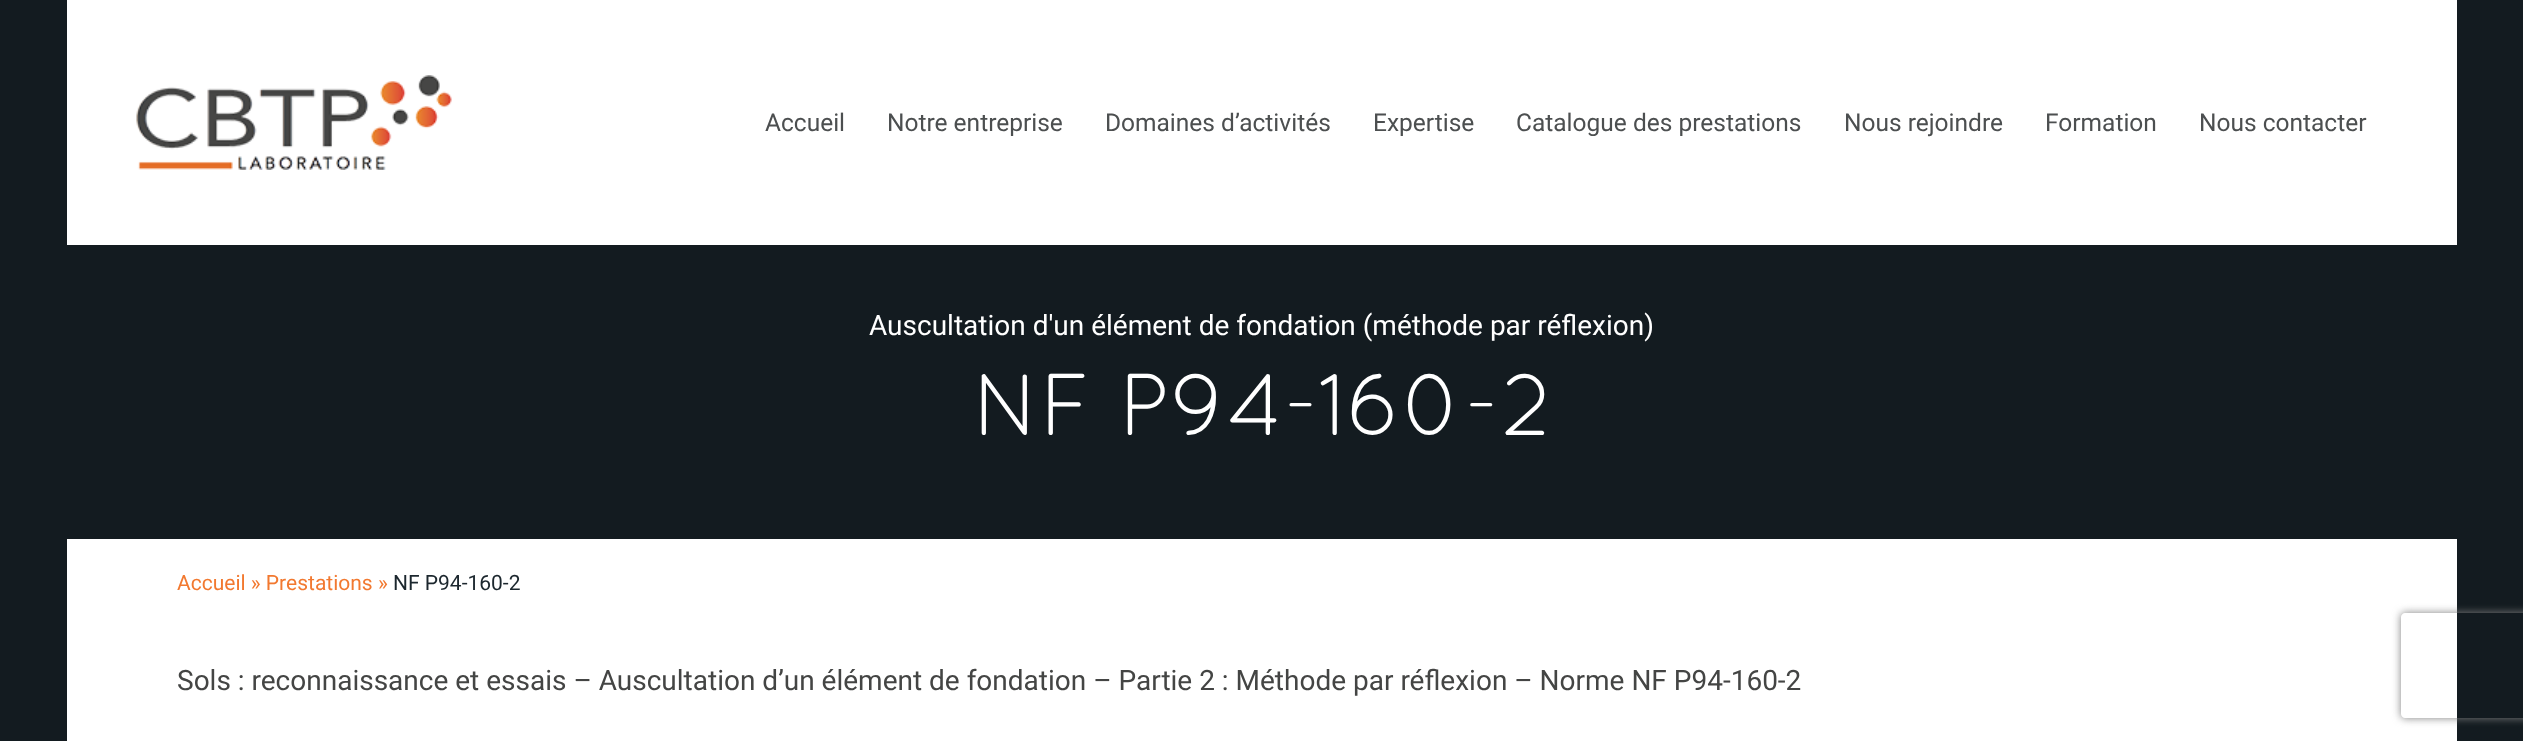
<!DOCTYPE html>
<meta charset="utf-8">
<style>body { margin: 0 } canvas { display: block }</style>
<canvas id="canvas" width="2523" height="741"></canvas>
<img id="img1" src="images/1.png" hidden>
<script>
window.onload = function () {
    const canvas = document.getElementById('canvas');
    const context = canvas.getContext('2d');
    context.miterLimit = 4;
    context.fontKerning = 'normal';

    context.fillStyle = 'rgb(19, 27, 32)';
    context.fillRect(0, 0, 2523, 741);
    context.fillStyle = 'rgb(255, 255, 255)';
    context.fillRect(67, 0, 2390, 741);
    context.drawImage(document.getElementById('img1'), 136, 75, 316, 95);
    context.fillStyle = 'rgb(19, 27, 32)';
    context.fillRect(67, 245, 2390, 294);
    context.save();
    context.beginPath();
    context.moveTo(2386, 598);
    context.lineTo(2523, 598);
    context.lineTo(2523, 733);
    context.lineTo(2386, 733);
    context.closePath();
    context.moveTo(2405, 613);
    context.lineTo(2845, 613);
    context.bezierCurveTo(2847, 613, 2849, 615, 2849, 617);
    context.lineTo(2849, 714);
    context.bezierCurveTo(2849, 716, 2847, 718, 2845, 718);
    context.lineTo(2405, 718);
    context.bezierCurveTo(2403, 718, 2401, 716, 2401, 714);
    context.lineTo(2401, 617);
    context.bezierCurveTo(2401, 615, 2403, 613, 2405, 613);
    context.closePath();
    context.clip('evenodd');
    context.fillStyle = 'rgb(128, 128, 128)';
    context.filter = 'blur(4.5px)';
    context.beginPath();
    context.roundRect(2401, 613, 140, 105, 4);
    context.fill();
    context.filter = 'none';
    context.restore();
    context.font = '24.5px Roboto';
    context.fillStyle = 'rgb(76, 79, 80)';
    context.fillText('Accueil', 765, 131);
    context.fillText('Notre entreprise', 887, 131);
    context.fillText('Domaines d’activités', 1105, 131);
    context.fillText('Expertise', 1373, 131);
    context.fillText('Catalogue des prestations', 1516, 131);
    context.fillText('Nous rejoindre', 1844, 131);
    context.fillText('Formation', 2045, 131);
    context.fillText('Nous contacter', 2199, 131);
    context.font = '28px Roboto';
    context.fillStyle = 'rgb(255, 255, 255)';
    context.fillText('Auscultation d\'un élément de fondation (méthode par réflexion)', 869, 335);
    context.font = '87.5px Quicksand';
    context.fillText('NF P94-160-2', 972, 435);
    context.font = '21px Roboto';
    context.fillStyle = 'rgb(242, 121, 48)';
    context.fillText('Accueil » Prestations »', 177, 590);
    context.fillStyle = 'rgb(28, 39, 46)';
    context.fillText('NF P94-160-2', 393, 590);
    context.font = '28px Roboto';
    context.fillStyle = 'rgb(68, 69, 68)';
    context.fillText('Sols : reconnaissance et essais – Auscultation d’un élément de fondation – Partie 2 : Méthode par réflexion – Norme NF P94-160-2', 177, 690);
};
</script>
